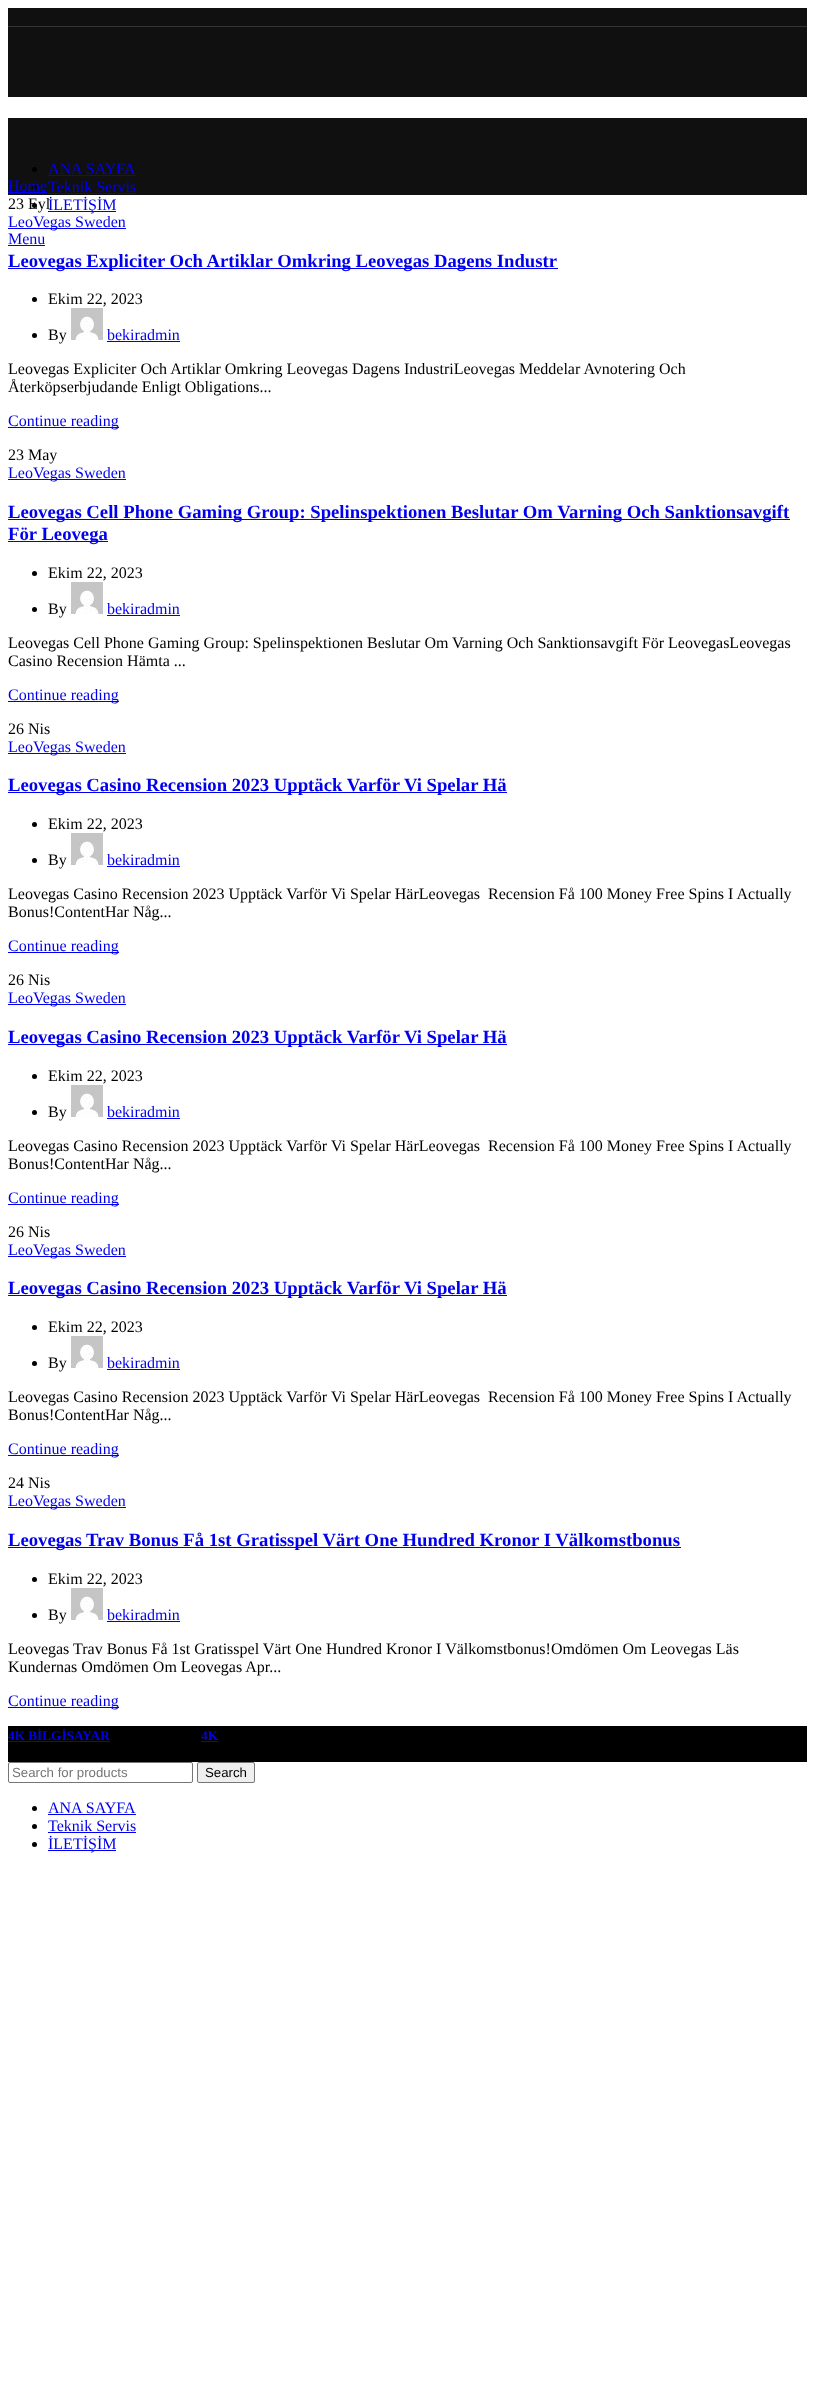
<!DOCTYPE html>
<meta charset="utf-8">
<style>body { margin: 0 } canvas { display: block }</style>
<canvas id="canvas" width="815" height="2407"></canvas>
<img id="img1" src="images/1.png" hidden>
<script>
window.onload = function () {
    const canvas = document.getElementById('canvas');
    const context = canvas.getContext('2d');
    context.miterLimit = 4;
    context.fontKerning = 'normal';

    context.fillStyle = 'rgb(255, 255, 255)';
    context.fillRect(0, 0, 815, 2407);
    context.fillStyle = 'rgb(16, 16, 16)';
    context.fillRect(8, 8, 799, 18);
    context.fillStyle = 'rgb(52, 52, 52)';
    context.fillRect(8, 26, 799, 1);
    context.fillStyle = 'rgb(16, 16, 16)';
    context.fillRect(8, 27, 799, 70);
    context.fillRect(8, 118, 799, 77);
    context.fillStyle = 'rgb(0, 0, 0)';
    context.beginPath();
    context.arc(34.5, 169.5, 2.5, 0, 2 * Math.PI);
    context.fill();
    context.fillStyle = 'rgb(0, 0, 238)';
    context.fillRect(48, 175, 88, 1);
    context.fillStyle = 'rgb(0, 0, 0)';
    context.beginPath();
    context.arc(34.5, 187.5, 2.5, 0, 2 * Math.PI);
    context.fill();
    context.fillStyle = 'rgb(0, 0, 238)';
    context.fillRect(48, 193, 88, 1);
    context.fillStyle = 'rgb(0, 0, 0)';
    context.beginPath();
    context.arc(34.5, 205.5, 2.5, 0, 2 * Math.PI);
    context.fill();
    context.fillStyle = 'rgb(0, 0, 238)';
    context.fillRect(48, 211, 68, 1);
    context.fillRect(8, 245, 37, 1);
    context.fillRect(8, 192, 39, 1);
    context.fillRect(8, 228, 118, 1);
    context.fillRect(8, 268, 550, 1);
    context.fillStyle = 'rgb(0, 0, 0)';
    context.beginPath();
    context.arc(34.5, 299.5, 2.5, 0, 2 * Math.PI);
    context.fill();
    context.beginPath();
    context.arc(34.5, 335.5, 2.5, 0, 2 * Math.PI);
    context.fill();
    context.drawImage(document.getElementById('img1'), 71, 308, 32, 32);
    context.fillStyle = 'rgb(0, 0, 238)';
    context.fillRect(107, 341, 73, 1);
    context.fillRect(8, 427, 111, 1);
    context.fillRect(8, 479, 118, 1);
    context.fillRect(8, 519, 782, 1);
    context.fillRect(8, 541, 100, 1);
    context.fillStyle = 'rgb(0, 0, 0)';
    context.beginPath();
    context.arc(34.5, 573.5, 2.5, 0, 2 * Math.PI);
    context.fill();
    context.beginPath();
    context.arc(34.5, 609.5, 2.5, 0, 2 * Math.PI);
    context.fill();
    context.drawImage(document.getElementById('img1'), 71, 582, 32, 32);
    context.fillStyle = 'rgb(0, 0, 238)';
    context.fillRect(107, 615, 73, 1);
    context.fillRect(8, 701, 111, 1);
    context.fillRect(8, 753, 118, 1);
    context.fillRect(8, 792, 499, 1);
    context.fillStyle = 'rgb(0, 0, 0)';
    context.beginPath();
    context.arc(34.5, 824.5, 2.5, 0, 2 * Math.PI);
    context.fill();
    context.beginPath();
    context.arc(34.5, 860.5, 2.5, 0, 2 * Math.PI);
    context.fill();
    context.drawImage(document.getElementById('img1'), 71, 833, 32, 32);
    context.fillStyle = 'rgb(0, 0, 238)';
    context.fillRect(107, 866, 73, 1);
    context.fillRect(8, 952, 111, 1);
    context.fillRect(8, 1004, 118, 1);
    context.fillRect(8, 1044, 499, 1);
    context.fillStyle = 'rgb(0, 0, 0)';
    context.beginPath();
    context.arc(34.5, 1076.5, 2.5, 0, 2 * Math.PI);
    context.fill();
    context.beginPath();
    context.arc(34.5, 1112.5, 2.5, 0, 2 * Math.PI);
    context.fill();
    context.drawImage(document.getElementById('img1'), 71, 1085, 32, 32);
    context.fillStyle = 'rgb(0, 0, 238)';
    context.fillRect(107, 1118, 73, 1);
    context.fillRect(8, 1204, 111, 1);
    context.fillRect(8, 1256, 118, 1);
    context.fillRect(8, 1295, 499, 1);
    context.fillStyle = 'rgb(0, 0, 0)';
    context.beginPath();
    context.arc(34.5, 1327.5, 2.5, 0, 2 * Math.PI);
    context.fill();
    context.beginPath();
    context.arc(34.5, 1363.5, 2.5, 0, 2 * Math.PI);
    context.fill();
    context.drawImage(document.getElementById('img1'), 71, 1336, 32, 32);
    context.fillStyle = 'rgb(0, 0, 238)';
    context.fillRect(107, 1369, 73, 1);
    context.fillRect(8, 1455, 111, 1);
    context.fillRect(8, 1507, 118, 1);
    context.fillRect(8, 1547, 673, 1);
    context.fillStyle = 'rgb(0, 0, 0)';
    context.beginPath();
    context.arc(34.5, 1579.5, 2.5, 0, 2 * Math.PI);
    context.fill();
    context.beginPath();
    context.arc(34.5, 1615.5, 2.5, 0, 2 * Math.PI);
    context.fill();
    context.drawImage(document.getElementById('img1'), 71, 1588, 32, 32);
    context.fillStyle = 'rgb(0, 0, 238)';
    context.fillRect(107, 1621, 73, 1);
    context.fillRect(8, 1707, 111, 1);
    context.fillStyle = 'rgb(0, 0, 0)';
    context.fillRect(8, 1726, 799, 36);
    context.fillStyle = 'rgb(0, 0, 238)';
    context.fillRect(8, 1741, 102, 1);
    context.fillRect(201, 1741, 17, 1);
    context.beginPath();
    context.roundRect(8.5, 1762.5, 184, 20, 1.5);
    context.strokeStyle = 'rgb(118, 118, 118)';
    context.stroke();
    context.fillStyle = 'rgb(239, 239, 239)';
    context.beginPath();
    context.roundRect(197.5, 1762.5, 57, 20, 1.5);
    context.fill();
    context.stroke();
    context.fillStyle = 'rgb(0, 0, 0)';
    context.beginPath();
    context.arc(34.5, 1808.5, 2.5, 0, 2 * Math.PI);
    context.fill();
    context.fillStyle = 'rgb(0, 0, 238)';
    context.fillRect(48, 1814, 88, 1);
    context.fillStyle = 'rgb(0, 0, 0)';
    context.beginPath();
    context.arc(34.5, 1826.5, 2.5, 0, 2 * Math.PI);
    context.fill();
    context.fillStyle = 'rgb(0, 0, 238)';
    context.fillRect(48, 1832, 88, 1);
    context.fillStyle = 'rgb(0, 0, 0)';
    context.beginPath();
    context.arc(34.5, 1844.5, 2.5, 0, 2 * Math.PI);
    context.fill();
    context.fillStyle = 'rgb(0, 0, 238)';
    context.fillRect(48, 1850, 68, 1);
    context.font = '16px Liberation Serif';
    context.fillText('ANA SAYFA', 48, 174);
    context.fillText('Teknik Servis', 48, 192);
    context.fillText('İLETİŞİM', 48, 210);
    context.fillText('Menu', 8, 244);
    context.fillText('Home', 8, 191);
    context.fillStyle = 'rgb(0, 0, 0)';
    context.fillText('23 Eyl', 8, 209);
    context.fillStyle = 'rgb(0, 0, 238)';
    context.fillText('LeoVegas Sweden', 8, 227);
    context.font = 'bold 18.7px Liberation Serif';
    context.fillText('Leovegas Expliciter Och Artiklar Omkring Leovegas Dagens Industr', 8, 267);
    context.font = '16px Liberation Serif';
    context.fillStyle = 'rgb(0, 0, 0)';
    context.fillText('Ekim 22, 2023', 48, 304);
    context.fillText('By', 48, 340);
    context.fillStyle = 'rgb(0, 0, 238)';
    context.fillText('bekiradmin', 107, 340);
    context.fillStyle = 'rgb(0, 0, 0)';
    context.fillText('Leovegas Expliciter Och Artiklar Omkring Leovegas Dagens IndustriLeovegas Meddelar Avnotering Och', 8, 374);
    context.fillText('Återköpserbjudande Enligt Obligations...', 8, 392);
    context.fillStyle = 'rgb(0, 0, 238)';
    context.fillText('Continue reading', 8, 426);
    context.fillStyle = 'rgb(0, 0, 0)';
    context.fillText('23 May', 8, 460);
    context.fillStyle = 'rgb(0, 0, 238)';
    context.fillText('LeoVegas Sweden', 8, 478);
    context.font = 'bold 18.7px Liberation Serif';
    context.fillText('Leovegas Cell Phone Gaming Group: Spelinspektionen Beslutar Om Varning Och Sanktionsavgift', 8, 518);
    context.fillText('För Leovega', 8, 540);
    context.font = '16px Liberation Serif';
    context.fillStyle = 'rgb(0, 0, 0)';
    context.fillText('Ekim 22, 2023', 48, 578);
    context.fillText('By', 48, 614);
    context.fillStyle = 'rgb(0, 0, 238)';
    context.fillText('bekiradmin', 107, 614);
    context.fillStyle = 'rgb(0, 0, 0)';
    context.fillText('Leovegas Cell Phone Gaming Group: Spelinspektionen Beslutar Om Varning Och Sanktionsavgift För LeovegasLeovegas', 8, 648);
    context.fillText('Casino Recension Hämta ...', 8, 666);
    context.fillStyle = 'rgb(0, 0, 238)';
    context.fillText('Continue reading', 8, 700);
    context.fillStyle = 'rgb(0, 0, 0)';
    context.fillText('26 Nis', 8, 734);
    context.fillStyle = 'rgb(0, 0, 238)';
    context.fillText('LeoVegas Sweden', 8, 752);
    context.font = 'bold 18.7px Liberation Serif';
    context.fillText('Leovegas Casino Recension 2023 Upptäck Varför Vi Spelar Hä', 8, 791);
    context.font = '16px Liberation Serif';
    context.fillStyle = 'rgb(0, 0, 0)';
    context.fillText('Ekim 22, 2023', 48, 829);
    context.fillText('By', 48, 865);
    context.fillStyle = 'rgb(0, 0, 238)';
    context.fillText('bekiradmin', 107, 865);
    context.fillStyle = 'rgb(0, 0, 0)';
    context.fillText('Leovegas Casino Recension 2023 Upptäck Varför Vi Spelar HärLeovegas ️ Recension Få 100 Money Free Spins I Actually', 8, 899);
    context.fillText('Bonus!ContentHar Någ...', 8, 917);
    context.fillStyle = 'rgb(0, 0, 238)';
    context.fillText('Continue reading', 8, 951);
    context.fillStyle = 'rgb(0, 0, 0)';
    context.fillText('26 Nis', 8, 985);
    context.fillStyle = 'rgb(0, 0, 238)';
    context.fillText('LeoVegas Sweden', 8, 1003);
    context.font = 'bold 18.7px Liberation Serif';
    context.fillText('Leovegas Casino Recension 2023 Upptäck Varför Vi Spelar Hä', 8, 1043);
    context.font = '16px Liberation Serif';
    context.fillStyle = 'rgb(0, 0, 0)';
    context.fillText('Ekim 22, 2023', 48, 1081);
    context.fillText('By', 48, 1117);
    context.fillStyle = 'rgb(0, 0, 238)';
    context.fillText('bekiradmin', 107, 1117);
    context.fillStyle = 'rgb(0, 0, 0)';
    context.fillText('Leovegas Casino Recension 2023 Upptäck Varför Vi Spelar HärLeovegas ️ Recension Få 100 Money Free Spins I Actually', 8, 1151);
    context.fillText('Bonus!ContentHar Någ...', 8, 1169);
    context.fillStyle = 'rgb(0, 0, 238)';
    context.fillText('Continue reading', 8, 1203);
    context.fillStyle = 'rgb(0, 0, 0)';
    context.fillText('26 Nis', 8, 1237);
    context.fillStyle = 'rgb(0, 0, 238)';
    context.fillText('LeoVegas Sweden', 8, 1255);
    context.font = 'bold 18.7px Liberation Serif';
    context.fillText('Leovegas Casino Recension 2023 Upptäck Varför Vi Spelar Hä', 8, 1294);
    context.font = '16px Liberation Serif';
    context.fillStyle = 'rgb(0, 0, 0)';
    context.fillText('Ekim 22, 2023', 48, 1332);
    context.fillText('By', 48, 1368);
    context.fillStyle = 'rgb(0, 0, 238)';
    context.fillText('bekiradmin', 107, 1368);
    context.fillStyle = 'rgb(0, 0, 0)';
    context.fillText('Leovegas Casino Recension 2023 Upptäck Varför Vi Spelar HärLeovegas ️ Recension Få 100 Money Free Spins I Actually', 8, 1402);
    context.fillText('Bonus!ContentHar Någ...', 8, 1420);
    context.fillStyle = 'rgb(0, 0, 238)';
    context.fillText('Continue reading', 8, 1454);
    context.fillStyle = 'rgb(0, 0, 0)';
    context.fillText('24 Nis', 8, 1488);
    context.fillStyle = 'rgb(0, 0, 238)';
    context.fillText('LeoVegas Sweden', 8, 1506);
    context.font = 'bold 18.7px Liberation Serif';
    context.fillText('Leovegas Trav Bonus Få 1st Gratisspel Värt One Hundred Kronor I Välkomstbonus', 8, 1546);
    context.font = '16px Liberation Serif';
    context.fillStyle = 'rgb(0, 0, 0)';
    context.fillText('Ekim 22, 2023', 48, 1584);
    context.fillText('By', 48, 1620);
    context.fillStyle = 'rgb(0, 0, 238)';
    context.fillText('bekiradmin', 107, 1620);
    context.fillStyle = 'rgb(0, 0, 0)';
    context.fillText('Leovegas Trav Bonus Få 1st Gratisspel Värt One Hundred Kronor I Välkomstbonus!Omdömen Om Leovegas Läs', 8, 1654);
    context.fillText('Kundernas Omdömen Om Leovegas Apr...', 8, 1672);
    context.fillStyle = 'rgb(0, 0, 238)';
    context.fillText('Continue reading', 8, 1706);
    context.font = 'bold 13.25px Liberation Serif';
    context.fillText('4K BİLGİSAYAR', 8, 1740);
    context.fillText('4K', 201, 1740);
    context.font = '13.25px Liberation Sans';
    context.fillStyle = 'rgb(117, 117, 117)';
    context.fillText('Search for products', 12, 1777);
    context.fillStyle = 'rgb(0, 0, 0)';
    context.fillText('Search', 205, 1777);
    context.font = '16px Liberation Serif';
    context.fillStyle = 'rgb(0, 0, 238)';
    context.fillText('ANA SAYFA', 48, 1813);
    context.fillText('Teknik Servis', 48, 1831);
    context.fillText('İLETİŞİM', 48, 1849);
};
</script>
